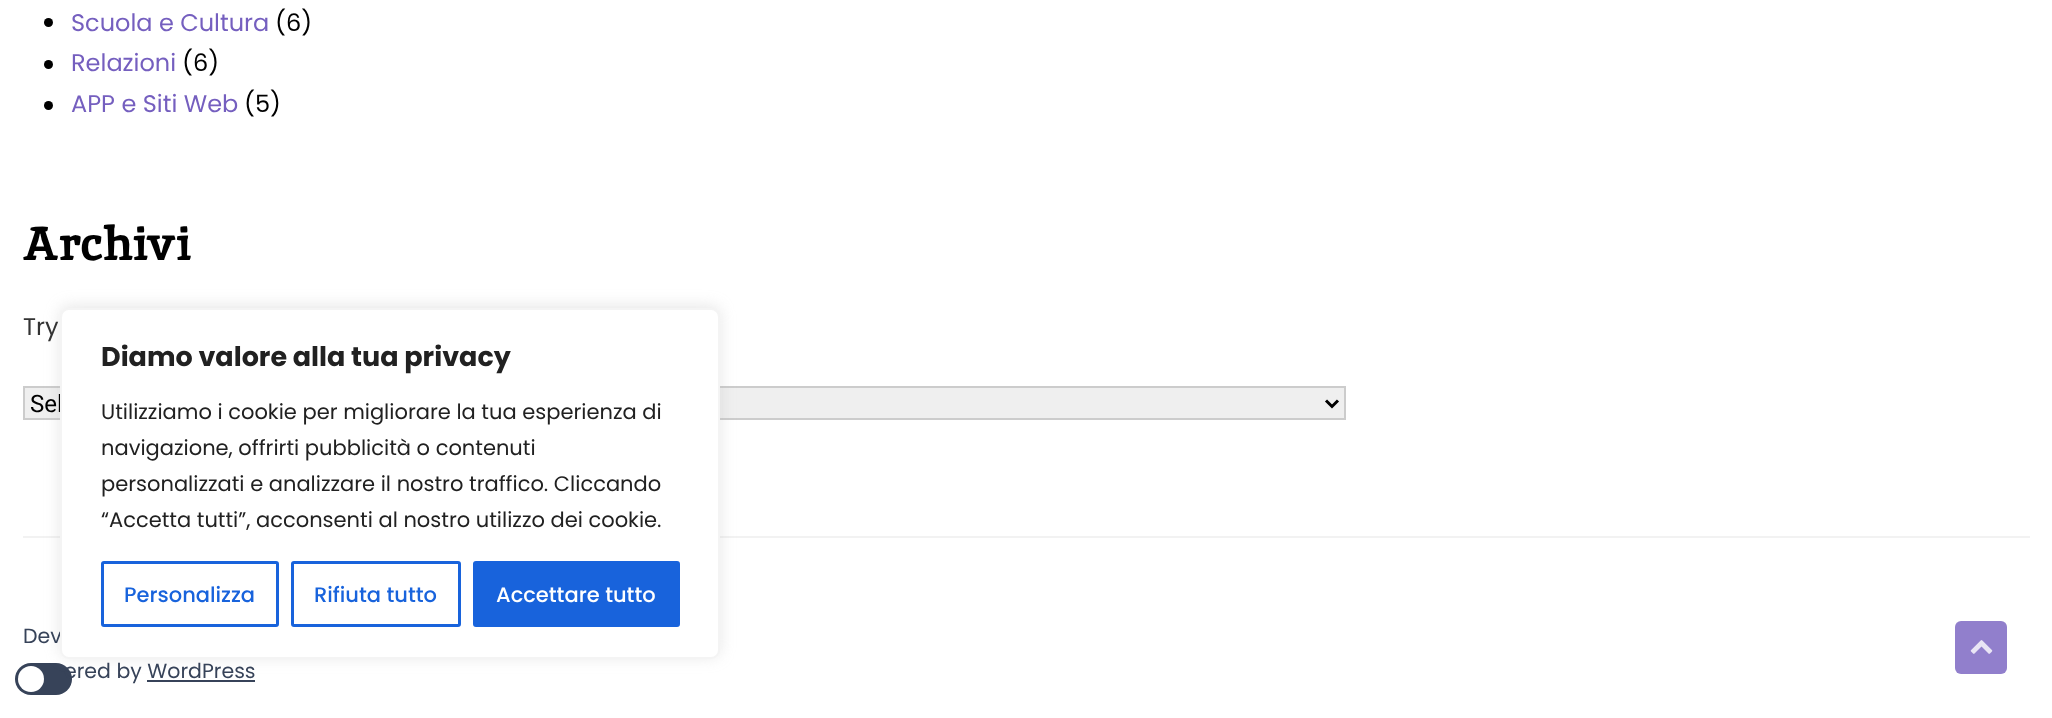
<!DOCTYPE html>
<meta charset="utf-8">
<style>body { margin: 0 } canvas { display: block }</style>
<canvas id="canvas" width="2052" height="718"></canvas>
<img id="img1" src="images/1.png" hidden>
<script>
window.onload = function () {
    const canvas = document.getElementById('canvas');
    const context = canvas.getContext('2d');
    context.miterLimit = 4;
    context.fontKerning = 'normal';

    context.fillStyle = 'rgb(255, 255, 255)';
    context.fillRect(0, 0, 2052, 718);
    context.fillStyle = 'rgb(0, 0, 0)';
    context.beginPath();
    context.arc(48.5, 22.5, 4.5, 0, 2 * Math.PI);
    context.fill();
    context.beginPath();
    context.arc(48.5, 64.5, 4.5, 0, 2 * Math.PI);
    context.fill();
    context.beginPath();
    context.arc(48.5, 105.5, 4.5, 0, 2 * Math.PI);
    context.fill();
    context.fillStyle = 'rgb(239, 239, 239)';
    context.beginPath();
    context.rect(24, 387, 1321, 32);
    context.fill();
    context.strokeStyle = 'rgb(204, 204, 204)';
    context.lineWidth = 2;
    context.stroke();
    context.beginPath();
    context.moveTo(1326, 400.5);
    context.lineTo(1332, 406.5);
    context.lineTo(1338, 400.5);
    context.strokeStyle = 'rgb(0, 0, 0)';
    context.lineWidth = 3;
    context.stroke();
    context.fillStyle = 'rgb(55, 67, 89)';
    context.beginPath();
    context.roundRect(15, 663, 57, 32, 16);
    context.fill();
    context.fillStyle = 'rgb(255, 255, 255)';
    context.beginPath();
    context.arc(31, 679, 13, 0, 2 * Math.PI);
    context.fill();
    context.fillStyle = 'rgb(242, 242, 242)';
    context.fillRect(23, 536, 2007, 2);
    context.fillStyle = 'rgb(55, 67, 89)';
    context.fillRect(147, 680, 108, 2);
    context.fillStyle = 'rgba(172, 171, 171, 0.3)';
    context.filter = 'blur(7.5px)';
    context.beginPath();
    context.roundRect(60, 306, 660, 351, 9);
    context.fill();
    context.filter = 'none';
    context.fillStyle = 'rgb(145, 127, 204)';
    context.beginPath();
    context.roundRect(1955, 621, 52, 53, 6);
    context.fill();
    context.drawImage(document.getElementById('img1'), 1970, 640, 23, 14);
    context.font = '24px Poppins';
    context.fillStyle = 'rgb(117, 95, 191)';
    context.fillText('Scuola e Cultura', 71, 31);
    context.fillStyle = 'rgb(0, 0, 0)';
    context.fillText('(6)', 275, 31);
    context.fillStyle = 'rgb(117, 95, 191)';
    context.fillText('Relazioni', 71, 71);
    context.fillStyle = 'rgb(0, 0, 0)';
    context.fillText('(6)', 182, 71);
    context.fillStyle = 'rgb(117, 95, 191)';
    context.fillText('APP e Siti Web', 71, 112);
    context.fillStyle = 'rgb(0, 0, 0)';
    context.fillText('(5)', 244, 112);
    context.font = 'bold 48px Inika';
    context.fillText('Archivi', 23, 260);
    context.font = '24px Poppins';
    context.fillStyle = 'rgb(51, 51, 51)';
    context.fillText('Try', 23, 335);
    context.font = '24px Roboto';
    context.fillStyle = 'rgb(0, 0, 0)';
    context.fillText('Sel', 30, 412);
    context.font = '20.5px Poppins';
    context.fillStyle = 'rgb(55, 67, 89)';
    context.fillText('Dev', 23, 643);
    context.fillStyle = 'rgb(255, 255, 255)';
    context.beginPath();
    context.roundRect(61, 309, 658, 349, 8);
    context.fill();
    context.strokeStyle = 'rgb(244, 244, 244)';
    context.lineWidth = 2;
    context.stroke();
    context.fillStyle = 'rgb(24, 99, 220)';
    context.beginPath();
    context.roundRect(474.5, 562.5, 204, 63, 1.5);
    context.fill();
    context.strokeStyle = 'rgb(24, 99, 220)';
    context.lineWidth = 3;
    context.stroke();
    context.font = '500 21px Poppins';
    context.fillStyle = 'rgb(255, 255, 255)';
    context.fillText('Accettare tutto', 496, 602);
    context.beginPath();
    context.roundRect(292.5, 562.5, 167, 63, 1.5);
    context.stroke();
    context.fillStyle = 'rgb(24, 99, 220)';
    context.fillText('Rifiuta tutto', 314, 602);
    context.beginPath();
    context.roundRect(102.5, 562.5, 175, 63, 1.5);
    context.stroke();
    context.fillText('Personalizza', 124, 602);
    context.font = '21px Poppins';
    context.fillStyle = 'rgb(33, 33, 33)';
    context.fillText('“Accetta tutti”, acconsenti al nostro utilizzo dei cookie.', 101, 527);
    context.fillText('personalizzati e analizzare il nostro traffico. Cliccando', 101, 491);
    context.fillText('navigazione, offrirti pubblicità o contenuti', 101, 455);
    context.fillText('Utilizziamo i cookie per migliorare la tua esperienza di', 101, 419);
    context.font = 'bold 27px Poppins';
    context.fillText('Diamo valore alla tua privacy', 101, 366);
    context.font = '20.5px Poppins';
    context.fillStyle = 'rgb(55, 67, 89)';
    context.fillText('ered by WordPress', 64, 678);
};
</script>
